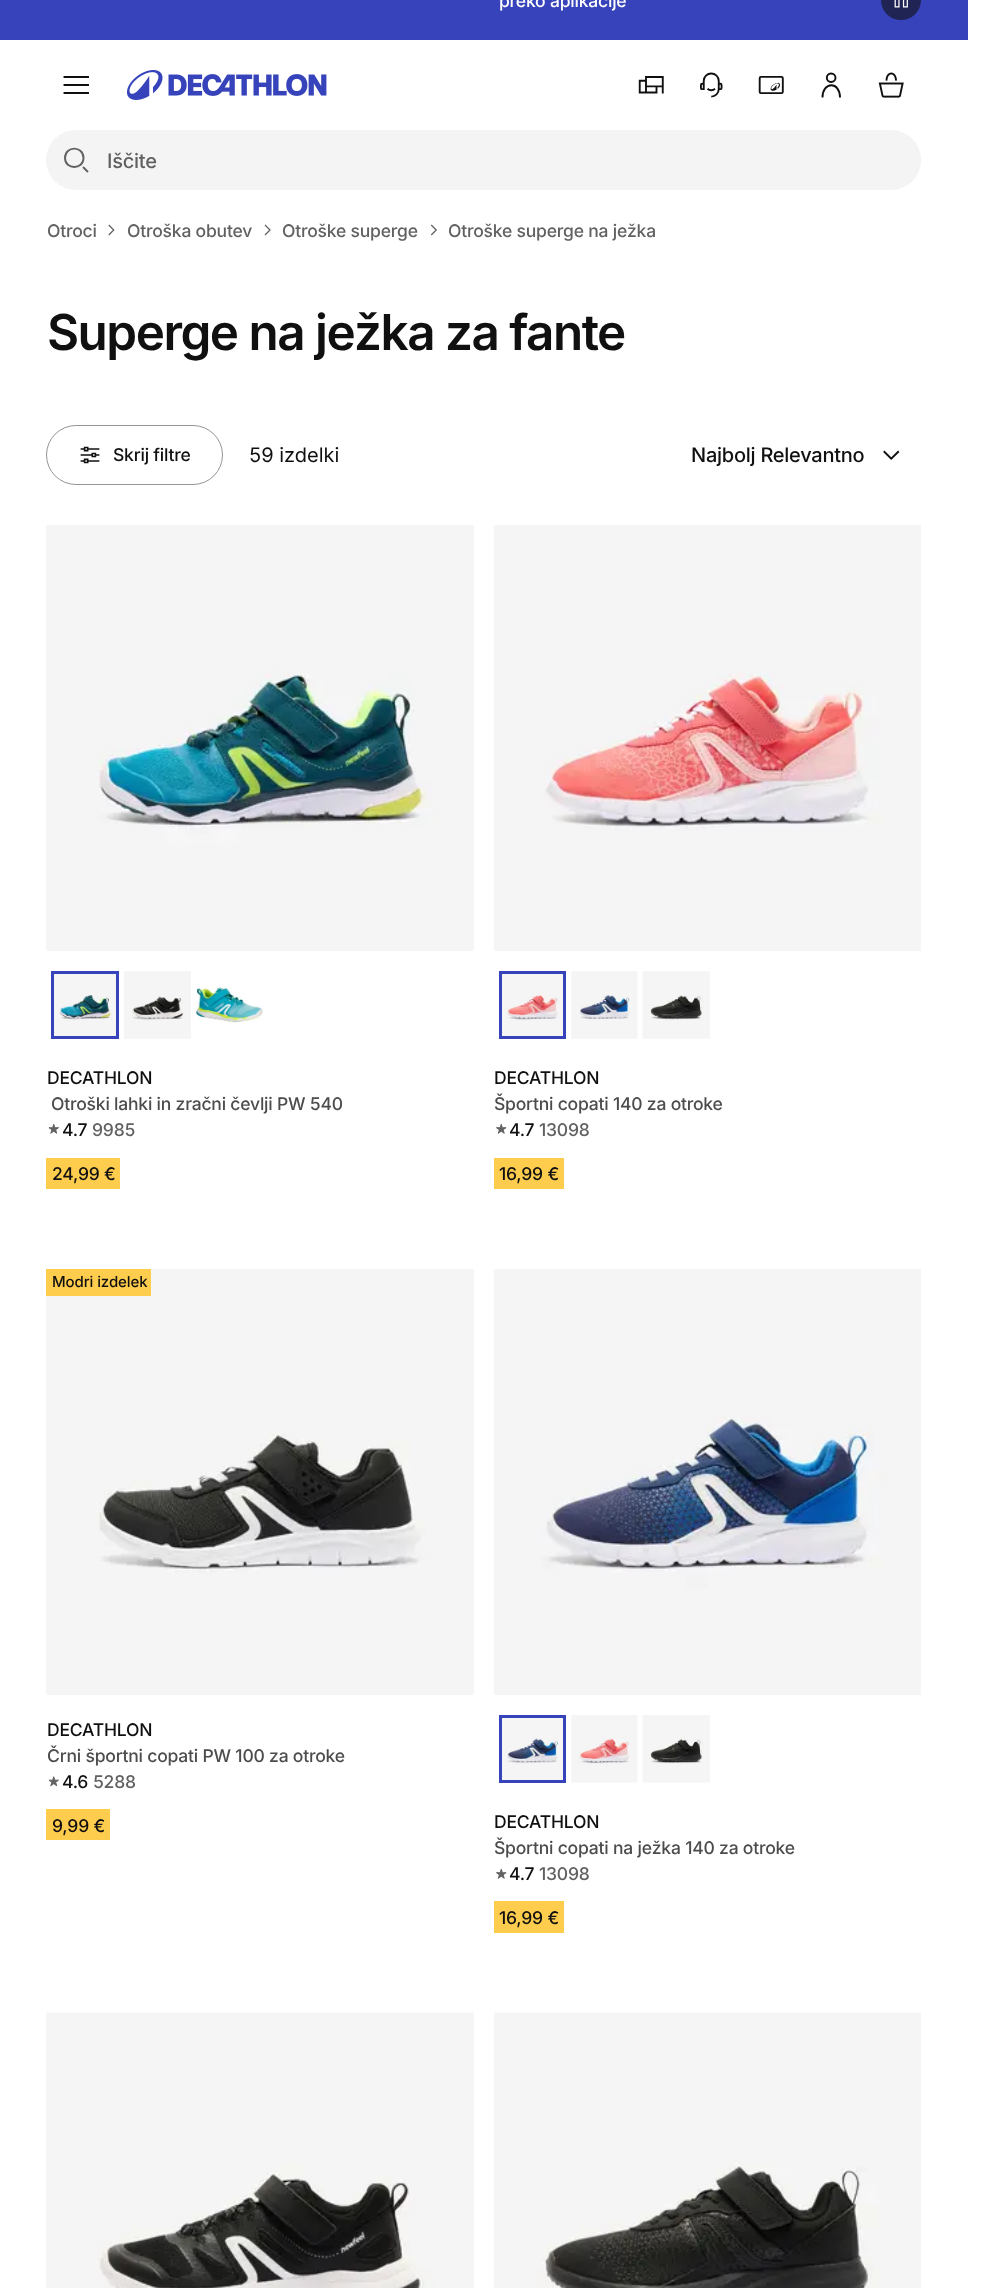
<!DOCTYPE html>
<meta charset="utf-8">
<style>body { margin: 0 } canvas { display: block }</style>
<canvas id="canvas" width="986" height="2288"></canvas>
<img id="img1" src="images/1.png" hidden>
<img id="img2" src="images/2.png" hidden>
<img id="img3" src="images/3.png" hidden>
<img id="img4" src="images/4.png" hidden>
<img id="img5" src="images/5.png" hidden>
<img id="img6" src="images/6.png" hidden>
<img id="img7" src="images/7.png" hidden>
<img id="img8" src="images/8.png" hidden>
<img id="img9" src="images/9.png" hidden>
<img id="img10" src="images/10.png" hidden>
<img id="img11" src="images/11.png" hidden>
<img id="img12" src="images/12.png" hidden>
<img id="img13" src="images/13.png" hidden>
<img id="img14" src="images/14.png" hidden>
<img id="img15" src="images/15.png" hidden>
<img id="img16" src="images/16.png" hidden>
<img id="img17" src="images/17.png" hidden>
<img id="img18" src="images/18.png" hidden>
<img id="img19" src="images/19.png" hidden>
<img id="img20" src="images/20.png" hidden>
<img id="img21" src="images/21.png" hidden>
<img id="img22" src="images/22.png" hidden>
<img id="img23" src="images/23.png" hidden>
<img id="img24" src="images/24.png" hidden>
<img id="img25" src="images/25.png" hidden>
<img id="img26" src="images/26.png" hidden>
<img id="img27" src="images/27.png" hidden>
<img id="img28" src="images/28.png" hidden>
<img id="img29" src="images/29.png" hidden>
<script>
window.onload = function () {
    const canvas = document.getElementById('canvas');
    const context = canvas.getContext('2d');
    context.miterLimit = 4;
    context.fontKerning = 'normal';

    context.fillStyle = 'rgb(255, 255, 255)';
    context.fillRect(0, 0, 986, 2288);
    context.fillStyle = 'rgb(54, 67, 186)';
    context.fillRect(0, 0, 968, 40);
    context.fillStyle = 'rgb(31, 36, 84)';
    context.beginPath();
    context.arc(901, 0, 20, 0, 2 * Math.PI);
    context.fill();
    context.drawImage(document.getElementById('img1'), 894, 0, 14, 8);
    context.beginPath();
    context.moveTo(64.5, 85);
    context.lineTo(88, 85);
    context.moveTo(64.5, 77);
    context.lineTo(88, 77);
    context.moveTo(64.5, 93);
    context.lineTo(88, 93);
    context.strokeStyle = 'rgb(16, 16, 16)';
    context.lineWidth = 1.9;
    context.lineCap = 'square';
    context.stroke();
    context.drawImage(document.getElementById('img2'), 126, 70, 201, 30);
    context.drawImage(document.getElementById('img3'), 638, 76, 26, 18);
    context.drawImage(document.getElementById('img4'), 700, 72, 23, 26);
    context.drawImage(document.getElementById('img5'), 758, 76, 26, 18);
    context.beginPath();
    context.moveTo(822.5, 97.5);
    context.bezierCurveTo(822.5, 81.5, 840, 81, 840, 97.5);
    context.moveTo(831, 73.5);
    context.bezierCurveTo(825.5, 73.5, 825.5, 82, 831, 82);
    context.bezierCurveTo(837, 82, 837, 73.5, 831, 73.5);
    context.closePath();
    context.lineCap = 'butt';
    context.stroke();
    context.drawImage(document.getElementById('img6'), 878, 72, 26, 26);
    context.fillStyle = 'rgb(245, 244, 245)';
    context.beginPath();
    context.roundRect(46, 130, 875, 60, 30);
    context.fill();
    context.beginPath();
    context.moveTo(88, 172);
    context.lineTo(83, 167);
    context.moveTo(83.5, 158);
    context.bezierCurveTo(83.5, 170, 65, 170, 65, 158);
    context.bezierCurveTo(65, 145.5, 83.5, 145.5, 83.5, 158);
    context.closePath();
    context.strokeStyle = 'rgb(97, 97, 97)';
    context.stroke();
    context.drawImage(document.getElementById('img7'), 108, 224, 7, 12);
    context.drawImage(document.getElementById('img8'), 264, 224, 7, 12);
    context.drawImage(document.getElementById('img9'), 430, 224, 7, 12);
    context.beginPath();
    context.roundRect(46.5, 425.5, 176, 59, 29.5);
    context.strokeStyle = 'rgb(148, 148, 148)';
    context.lineWidth = 1;
    context.stroke();
    context.drawImage(document.getElementById('img10'), 80, 446, 20, 18);
    context.drawImage(document.getElementById('img11'), 883, 450, 17, 10);
    context.drawImage(document.getElementById('img12'), 46, 525, 428, 426);
    context.drawImage(document.getElementById('img13'), 54, 974, 62, 62);
    context.beginPath();
    context.arc(85, 1005, 33.5, 0, 2 * Math.PI);
    context.strokeStyle = 'rgb(245, 245, 245)';
    context.stroke();
    context.strokeStyle = 'rgb(54, 67, 186)';
    context.lineWidth = 3;
    context.strokeRect(52.5, 972.5, 65, 65);
    context.drawImage(document.getElementById('img14'), 124, 971, 67, 68);
    context.drawImage(document.getElementById('img15'), 196, 987, 67, 36);
    context.drawImage(document.getElementById('img16'), 48, 1124, 11, 10);
    context.fillStyle = 'rgb(255, 205, 78)';
    context.fillRect(46, 1158, 74, 31);
    context.drawImage(document.getElementById('img17'), 494, 525, 427, 426);
    context.drawImage(document.getElementById('img18'), 502, 974, 61, 62);
    context.beginPath();
    context.roundRect(499.5, 971.5, 66, 67, 33);
    context.strokeStyle = 'rgb(245, 245, 245)';
    context.lineWidth = 1;
    context.stroke();
    context.strokeStyle = 'rgb(54, 67, 186)';
    context.lineWidth = 3;
    context.strokeRect(500.5, 972.5, 64, 65);
    context.drawImage(document.getElementById('img19'), 571, 971, 67, 68);
    context.drawImage(document.getElementById('img20'), 642, 971, 68, 68);
    context.drawImage(document.getElementById('img21'), 496, 1124, 11, 10);
    context.fillRect(494, 1158, 70, 31);
    context.drawImage(document.getElementById('img22'), 46, 1269, 428, 426);
    context.fillRect(46, 1269, 105, 27);
    context.drawImage(document.getElementById('img23'), 48, 1776, 11, 11);
    context.fillRect(46, 1809, 64, 31);
    context.drawImage(document.getElementById('img24'), 494, 1269, 427, 426);
    context.drawImage(document.getElementById('img25'), 502, 1718, 61, 62);
    context.strokeRect(500.5, 1716.5, 64, 65);
    context.drawImage(document.getElementById('img26'), 571, 1715, 67, 68);
    context.drawImage(document.getElementById('img27'), 642, 1715, 68, 68);
    context.drawImage(document.getElementById('img21'), 496, 1869, 11, 10);
    context.fillRect(494, 1901, 70, 32);
    context.drawImage(document.getElementById('img28'), 46, 2012, 428, 276);
    context.drawImage(document.getElementById('img29'), 494, 2012, 427, 276);
    context.letterSpacing = '-0.2px';
    context.font = '500 17.5px Inter';
    context.fillStyle = 'rgb(255, 255, 255)';
    context.fillText('preko aplikacije', 499, 7);
    context.letterSpacing = '-0.25px';
    context.font = '500 20px Inter';
    context.fillStyle = 'rgb(97, 97, 97)';
    context.fillText('Iščite', 107, 168);
    context.letterSpacing = '-0.2px';
    context.font = '500 17.5px Inter';
    context.fillText('Otroci', 47, 237);
    context.fillText('Otroška obutev', 127, 237);
    context.fillText('Otroške superge', 282, 237);
    context.fillText('Otroške superge na ježka', 448, 237);
    context.letterSpacing = '-1.5px';
    context.font = '600 49.4px Inter';
    context.fillStyle = 'rgb(16, 16, 16)';
    context.fillText('Superge na ježka za fante', 47, 350);
    context.letterSpacing = '-0.2px';
    context.font = '500 17.5px Inter';
    context.fillText('Skrij filtre', 113, 461);
    context.letterSpacing = '0px';
    context.font = '20px Inter';
    context.fillText('59 izdelki', 249, 462);
    context.letterSpacing = '-0.25px';
    context.font = '500 20px Inter';
    context.fillText('Najbolj Relevantno', 691, 462);
    context.letterSpacing = '-0.2px';
    context.font = '500 17.5px Inter';
    context.fillText('DECATHLON', 47, 1084);
    context.fillStyle = 'rgb(76, 76, 76)';
    context.fillText('Otroški lahki in zračni čevlji PW 540', 51, 1110);
    context.fillStyle = 'rgb(16, 16, 16)';
    context.fillText('4.7', 62, 1136);
    context.fillStyle = 'rgb(97, 97, 97)';
    context.fillText('9985', 92, 1136);
    context.fillStyle = 'rgb(16, 16, 16)';
    context.fillText('24,99 €', 52, 1180);
    context.fillText('DECATHLON', 494, 1084);
    context.fillStyle = 'rgb(76, 76, 76)';
    context.fillText('Športni copati 140 za otroke', 494, 1110);
    context.fillStyle = 'rgb(16, 16, 16)';
    context.fillText('4.7', 509, 1136);
    context.fillStyle = 'rgb(97, 97, 97)';
    context.fillText('13098', 539, 1136);
    context.fillStyle = 'rgb(16, 16, 16)';
    context.fillText('16,99 €', 499, 1180);
    context.letterSpacing = '-0.1px';
    context.font = '500 15px Inter';
    context.fillText('Modri izdelek', 52, 1287);
    context.letterSpacing = '-0.2px';
    context.font = '500 17.5px Inter';
    context.fillText('DECATHLON', 47, 1736);
    context.fillStyle = 'rgb(76, 76, 76)';
    context.fillText('Črni športni copati PW 100 za otroke', 47, 1762);
    context.fillStyle = 'rgb(16, 16, 16)';
    context.fillText('4.6', 62, 1788);
    context.fillStyle = 'rgb(97, 97, 97)';
    context.fillText('5288', 93, 1788);
    context.fillStyle = 'rgb(16, 16, 16)';
    context.fillText('9,99 €', 52, 1832);
    context.fillText('DECATHLON', 494, 1828);
    context.fillStyle = 'rgb(76, 76, 76)';
    context.fillText('Športni copati na ježka 140 za otroke', 494, 1854);
    context.fillStyle = 'rgb(16, 16, 16)';
    context.fillText('4.7', 509, 1880);
    context.fillStyle = 'rgb(97, 97, 97)';
    context.fillText('13098', 539, 1880);
    context.fillStyle = 'rgb(16, 16, 16)';
    context.fillText('16,99 €', 499, 1924);
};
</script>
